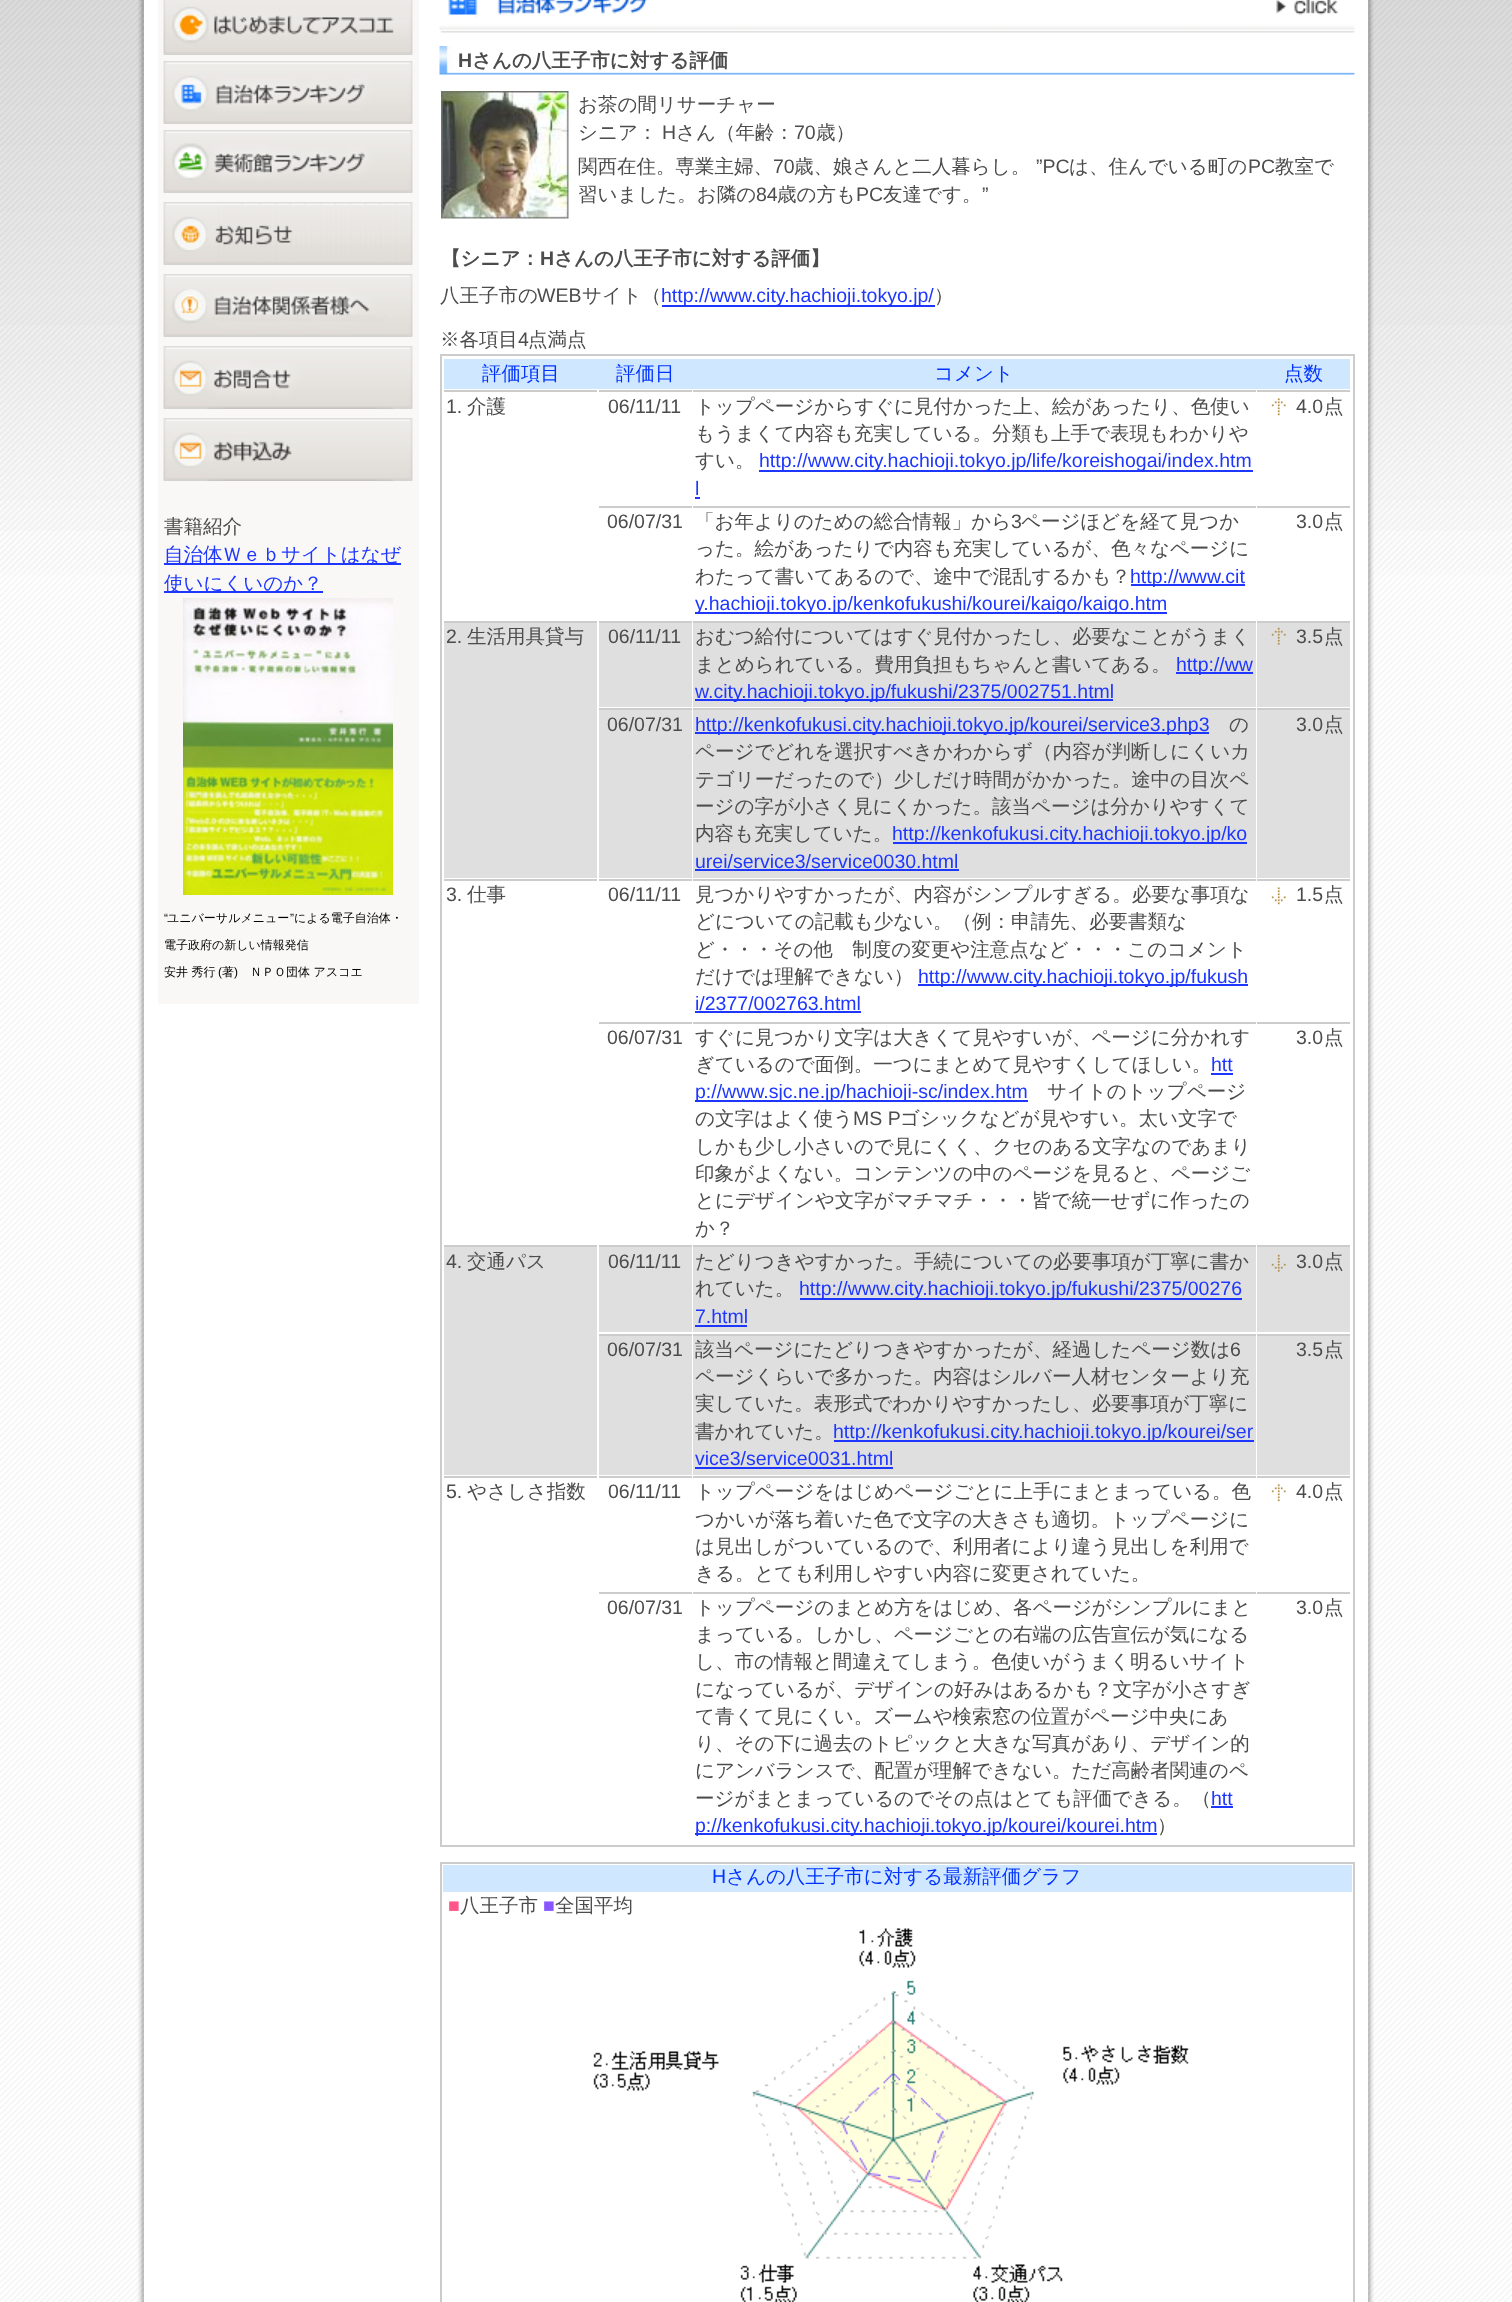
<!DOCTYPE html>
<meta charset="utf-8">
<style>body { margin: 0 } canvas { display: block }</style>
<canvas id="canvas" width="1512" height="2302"></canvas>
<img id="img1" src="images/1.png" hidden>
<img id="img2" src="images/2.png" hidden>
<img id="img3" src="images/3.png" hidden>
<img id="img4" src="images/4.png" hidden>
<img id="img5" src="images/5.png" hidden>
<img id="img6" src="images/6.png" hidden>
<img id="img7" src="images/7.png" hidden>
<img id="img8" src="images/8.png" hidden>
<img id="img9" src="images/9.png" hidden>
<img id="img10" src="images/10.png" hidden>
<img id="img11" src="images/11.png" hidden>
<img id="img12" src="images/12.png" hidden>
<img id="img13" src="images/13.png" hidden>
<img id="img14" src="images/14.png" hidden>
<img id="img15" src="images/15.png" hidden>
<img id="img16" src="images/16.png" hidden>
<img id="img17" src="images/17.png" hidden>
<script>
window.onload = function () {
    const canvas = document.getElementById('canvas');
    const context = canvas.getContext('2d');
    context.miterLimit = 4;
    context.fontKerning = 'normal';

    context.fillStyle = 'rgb(255, 255, 255)';
    context.fillRect(0, 0, 1512, 2302);
    context.drawImage(document.getElementById('img1'), 0, 0, 1512, 2302);
    context.fillRect(144, 0, 1224, 2302);
    context.fillStyle = 'rgb(249, 248, 247)';
    context.fillRect(158, 0, 261, 1004);
    context.drawImage(document.getElementById('img2'), 163, 0, 250, 55);
    context.drawImage(document.getElementById('img3'), 163, 61, 250, 63);
    context.drawImage(document.getElementById('img4'), 163, 130, 250, 63);
    context.drawImage(document.getElementById('img5'), 163, 202, 250, 63);
    context.drawImage(document.getElementById('img6'), 163, 274, 250, 63);
    context.drawImage(document.getElementById('img7'), 163, 346, 250, 63);
    context.drawImage(document.getElementById('img8'), 163, 418, 250, 63);
    context.fillStyle = 'rgb(30, 55, 255)';
    context.fillRect(164, 563, 237, 2);
    context.fillRect(164, 591, 159, 2);
    context.drawImage(document.getElementById('img9'), 183, 598, 210, 297);
    context.drawImage(document.getElementById('img10'), 439, 0, 916, 33);
    context.drawImage(document.getElementById('img11'), 439, 46, 916, 29);
    context.drawImage(document.getElementById('img12'), 441, 91, 128, 128);
    context.fillRect(662, 305, 273, 2);
    context.strokeStyle = 'rgb(204, 204, 204)';
    context.lineWidth = 2;
    context.strokeRect(441, 355, 913, 1491);
    context.fillStyle = 'rgb(208, 232, 255)';
    context.fillRect(444, 359, 906, 30);
    context.fillStyle = 'rgb(204, 204, 204)';
    context.fillRect(444, 390, 153, 2);
    context.fillRect(599, 390, 93, 2);
    context.fillRect(693, 390, 563, 2);
    context.fillStyle = 'rgb(30, 55, 255)';
    context.fillRect(759, 470, 494, 2);
    context.fillRect(695, 497, 5, 2);
    context.fillStyle = 'rgb(204, 204, 204)';
    context.fillRect(1257, 390, 93, 2);
    context.drawImage(document.getElementById('img13'), 1271, 398, 15, 18);
    context.fillRect(599, 506, 93, 2);
    context.fillRect(693, 506, 563, 2);
    context.fillStyle = 'rgb(30, 55, 255)';
    context.fillRect(1131, 584, 114, 2);
    context.fillRect(695, 612, 472, 2);
    context.fillStyle = 'rgb(204, 204, 204)';
    context.fillRect(1257, 506, 93, 2);
    context.fillStyle = 'rgb(223, 223, 223)';
    context.fillRect(444, 623, 153, 255);
    context.fillStyle = 'rgb(204, 204, 204)';
    context.fillRect(444, 621, 153, 2);
    context.fillStyle = 'rgb(223, 223, 223)';
    context.fillRect(599, 623, 93, 84);
    context.fillStyle = 'rgb(204, 204, 204)';
    context.fillRect(599, 621, 93, 2);
    context.fillStyle = 'rgb(223, 223, 223)';
    context.fillRect(693, 623, 563, 84);
    context.fillStyle = 'rgb(204, 204, 204)';
    context.fillRect(693, 621, 563, 2);
    context.fillStyle = 'rgb(30, 55, 255)';
    context.fillRect(1176, 672, 77, 2);
    context.fillRect(695, 699, 418, 2);
    context.fillStyle = 'rgb(223, 223, 223)';
    context.fillRect(1257, 623, 93, 84);
    context.fillStyle = 'rgb(204, 204, 204)';
    context.fillRect(1257, 621, 93, 2);
    context.drawImage(document.getElementById('img14'), 1271, 627, 15, 18);
    context.fillStyle = 'rgb(223, 223, 223)';
    context.fillRect(599, 710, 93, 168);
    context.fillStyle = 'rgb(204, 204, 204)';
    context.fillRect(599, 708, 93, 2);
    context.fillStyle = 'rgb(223, 223, 223)';
    context.fillRect(693, 710, 563, 168);
    context.fillStyle = 'rgb(204, 204, 204)';
    context.fillRect(693, 708, 563, 2);
    context.fillStyle = 'rgb(30, 55, 255)';
    context.fillRect(695, 732, 514, 2);
    context.fillRect(893, 842, 354, 2);
    context.fillRect(695, 869, 264, 2);
    context.fillStyle = 'rgb(223, 223, 223)';
    context.fillRect(1257, 710, 93, 168);
    context.fillStyle = 'rgb(204, 204, 204)';
    context.fillRect(1257, 708, 93, 2);
    context.fillRect(444, 879, 153, 2);
    context.fillRect(599, 879, 93, 2);
    context.fillRect(693, 879, 563, 2);
    context.fillStyle = 'rgb(30, 55, 255)';
    context.fillRect(918, 984, 330, 2);
    context.fillRect(695, 1011, 166, 2);
    context.fillStyle = 'rgb(204, 204, 204)';
    context.fillRect(1257, 879, 93, 2);
    context.drawImage(document.getElementById('img15'), 1271, 887, 15, 18);
    context.fillRect(599, 1022, 93, 2);
    context.fillRect(693, 1022, 563, 2);
    context.fillStyle = 'rgb(30, 55, 255)';
    context.fillRect(1211, 1073, 22, 2);
    context.fillRect(695, 1100, 333, 2);
    context.fillStyle = 'rgb(204, 204, 204)';
    context.fillRect(1257, 1022, 93, 2);
    context.fillStyle = 'rgb(223, 223, 223)';
    context.fillRect(444, 1247, 153, 228);
    context.fillStyle = 'rgb(204, 204, 204)';
    context.fillRect(444, 1245, 153, 2);
    context.fillStyle = 'rgb(223, 223, 223)';
    context.fillRect(599, 1247, 93, 85);
    context.fillStyle = 'rgb(204, 204, 204)';
    context.fillRect(599, 1245, 93, 2);
    context.fillStyle = 'rgb(223, 223, 223)';
    context.fillRect(693, 1247, 563, 85);
    context.fillStyle = 'rgb(204, 204, 204)';
    context.fillRect(693, 1245, 563, 2);
    context.fillStyle = 'rgb(30, 55, 255)';
    context.fillRect(800, 1298, 442, 2);
    context.fillRect(695, 1325, 52, 2);
    context.fillStyle = 'rgb(223, 223, 223)';
    context.fillRect(1257, 1247, 93, 85);
    context.fillStyle = 'rgb(204, 204, 204)';
    context.fillRect(1257, 1245, 93, 2);
    context.drawImage(document.getElementById('img16'), 1271, 1254, 15, 18);
    context.fillStyle = 'rgb(223, 223, 223)';
    context.fillRect(599, 1336, 93, 139);
    context.fillStyle = 'rgb(204, 204, 204)';
    context.fillRect(599, 1334, 93, 2);
    context.fillStyle = 'rgb(223, 223, 223)';
    context.fillRect(693, 1336, 563, 139);
    context.fillStyle = 'rgb(204, 204, 204)';
    context.fillRect(693, 1334, 563, 2);
    context.fillStyle = 'rgb(30, 55, 255)';
    context.fillRect(834, 1440, 420, 2);
    context.fillRect(695, 1467, 198, 2);
    context.fillStyle = 'rgb(223, 223, 223)';
    context.fillRect(1257, 1336, 93, 139);
    context.fillStyle = 'rgb(204, 204, 204)';
    context.fillRect(1257, 1334, 93, 2);
    context.fillRect(444, 1476, 153, 2);
    context.fillRect(599, 1476, 93, 2);
    context.fillRect(693, 1476, 563, 2);
    context.fillRect(1257, 1476, 93, 2);
    context.drawImage(document.getElementById('img13'), 1271, 1484, 15, 18);
    context.fillRect(599, 1592, 93, 2);
    context.fillRect(693, 1592, 563, 2);
    context.fillStyle = 'rgb(30, 55, 255)';
    context.fillRect(1211, 1806, 22, 2);
    context.fillRect(695, 1833, 462, 2);
    context.fillStyle = 'rgb(204, 204, 204)';
    context.fillRect(1257, 1592, 93, 2);
    context.strokeRect(441, 1863, 913, 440);
    context.fillStyle = 'rgb(208, 232, 255)';
    context.fillRect(443, 1865, 909, 27);
    context.drawImage(document.getElementById('img17'), 593, 1928, 596, 374);
    context.font = '500 19.5px WenQuanYi Zen Hei';
    context.fillStyle = 'rgb(76, 76, 76)';
    context.fillText('書籍紹介', 164, 533);
    context.fillStyle = 'rgb(30, 55, 255)';
    context.fillText('自治体Ｗｅｂサイトはなぜ', 164, 561);
    context.fillText('使いにくいのか？', 164, 590);
    context.font = '12px Liberation Sans';
    context.fillStyle = 'rgb(0, 0, 0)';
    context.fillText('“', 164, 922);
    context.font = '500 12px WenQuanYi Zen Hei';
    context.fillText('ユニバーサルメニュー', 167, 922);
    context.font = '12px Liberation Sans';
    context.fillText('”', 290, 922);
    context.font = '500 12px WenQuanYi Zen Hei';
    context.fillText('による電子自治体・', 294, 922);
    context.fillText('電子政府の新しい情報発信', 164, 949);
    context.fillText('安井 秀行', 164, 976);
    context.font = '12px Liberation Sans';
    context.fillText('(', 218, 976);
    context.font = '500 12px WenQuanYi Zen Hei';
    context.fillText('著', 222, 976);
    context.font = '12px Liberation Sans';
    context.fillText(')', 234, 976);
    context.font = '500 12px WenQuanYi Zen Hei';
    context.fillText('ＮＰＯ団体 アスコエ', 250, 976);
    context.font = 'bold 19.5px Liberation Sans';
    context.fillStyle = 'rgb(76, 76, 76)';
    context.fillText('H', 458, 67);
    context.font = 'bold 19.5px WenQuanYi Zen Hei';
    context.fillText('さんの八王子市に対する評価', 472, 67);
    context.font = '500 19.5px WenQuanYi Zen Hei';
    context.fillText('お茶の間リサーチャー', 578, 111);
    context.fillText('シニア：', 578, 139);
    context.font = '19.5px Liberation Sans';
    context.fillText('H', 662, 139);
    context.font = '500 19.5px WenQuanYi Zen Hei';
    context.fillText('さん（年齢：', 676, 139);
    context.font = '19.5px Liberation Sans';
    context.fillText('70', 794, 139);
    context.font = '500 19.5px WenQuanYi Zen Hei';
    context.fillText('歳）', 816, 139);
    context.fillText('関西在住。専業主婦、', 578, 173);
    context.font = '19.5px Liberation Sans';
    context.fillText('70', 773, 173);
    context.font = '500 19.5px WenQuanYi Zen Hei';
    context.fillText('歳、娘さんと二人暮らし。', 794, 173);
    context.font = '19.5px Liberation Sans';
    context.fillText('”PC', 1036, 173);
    context.font = '500 19.5px WenQuanYi Zen Hei';
    context.fillText('は、住んでいる町の', 1069, 173);
    context.font = '19.5px Liberation Sans';
    context.fillText('PC', 1248, 173);
    context.font = '500 19.5px WenQuanYi Zen Hei';
    context.fillText('教室で', 1275, 173);
    context.fillText('習いました。お隣の', 578, 201);
    context.font = '19.5px Liberation Sans';
    context.fillText('84', 756, 201);
    context.font = '500 19.5px WenQuanYi Zen Hei';
    context.fillText('歳の方も', 777, 201);
    context.font = '19.5px Liberation Sans';
    context.fillText('PC', 856, 201);
    context.font = '500 19.5px WenQuanYi Zen Hei';
    context.fillText('友達です。', 883, 201);
    context.font = '19.5px Liberation Sans';
    context.fillText('”', 982, 201);
    context.font = 'bold 19.5px WenQuanYi Zen Hei';
    context.fillText('【シニア：', 441, 265);
    context.font = 'bold 19.5px Liberation Sans';
    context.fillText('H', 540, 265);
    context.font = 'bold 19.5px WenQuanYi Zen Hei';
    context.fillText('さんの八王子市に対する評価】', 554, 265);
    context.font = '500 19.5px WenQuanYi Zen Hei';
    context.fillText('八王子市の', 440, 302);
    context.font = '19.5px Liberation Sans';
    context.fillText('WEB', 537, 302);
    context.font = '500 19.5px WenQuanYi Zen Hei';
    context.fillText('サイト（', 582, 302);
    context.font = '19.5px Liberation Sans';
    context.fillStyle = 'rgb(30, 55, 255)';
    context.fillText('http://www.city.hachioji.tokyo.jp/', 661, 302);
    context.font = '500 19.5px WenQuanYi Zen Hei';
    context.fillStyle = 'rgb(76, 76, 76)';
    context.fillText('）', 934, 302);
    context.fillText('※各項目', 440, 346);
    context.font = '19.5px Liberation Sans';
    context.fillText('4', 518, 346);
    context.font = '500 19.5px WenQuanYi Zen Hei';
    context.fillText('点満点', 528, 346);
    context.fillStyle = 'rgb(0, 51, 255)';
    context.fillText('評価項目', 482, 380);
    context.fillText('評価日', 616, 380);
    context.fillText('コメント', 934, 380);
    context.fillText('点数', 1284, 380);
    context.font = '19.5px Liberation Sans';
    context.fillStyle = 'rgb(76, 76, 76)';
    context.fillText('1.', 446, 413);
    context.font = '500 19.5px WenQuanYi Zen Hei';
    context.fillText('介護', 467, 413);
    context.font = '19.5px Liberation Sans';
    context.fillText('06/11/11', 608, 413);
    context.font = '500 19.5px WenQuanYi Zen Hei';
    context.fillText('トップページからすぐに見付かった上、絵があったり、色使い', 695, 413);
    context.fillText('もうまくて内容も充実している。分類も上手で表現もわかりや', 695, 440);
    context.fillText('すい。', 695, 467);
    context.font = '19.5px Liberation Sans';
    context.fillStyle = 'rgb(30, 55, 255)';
    context.fillText('http://www.city.hachioji.tokyo.jp/life/koreishogai/index.htm', 759, 467);
    context.fillText('l', 695, 495);
    context.fillStyle = 'rgb(76, 76, 76)';
    context.fillText('4.0', 1296, 413);
    context.font = '500 19.5px WenQuanYi Zen Hei';
    context.fillText('点', 1324, 413);
    context.font = '19.5px Liberation Sans';
    context.fillText('06/07/31', 607, 528);
    context.font = '500 19.5px WenQuanYi Zen Hei';
    context.fillText('「お年よりのための総合情報」から', 695, 528);
    context.font = '19.5px Liberation Sans';
    context.fillText('3', 1011, 528);
    context.font = '500 19.5px WenQuanYi Zen Hei';
    context.fillText('ページほどを経て見つか', 1021, 528);
    context.fillText('った。絵があったりで内容も充実しているが、色々なページに', 695, 555);
    context.fillText('わたって書いてあるので、途中で混乱するかも？', 695, 583);
    context.font = '19.5px Liberation Sans';
    context.fillStyle = 'rgb(30, 55, 255)';
    context.fillText('http://www.cit', 1130, 583);
    context.fillText('y.hachioji.tokyo.jp/kenkofukushi/kourei/kaigo/kaigo.htm', 695, 610);
    context.fillStyle = 'rgb(76, 76, 76)';
    context.fillText('3.0', 1296, 528);
    context.font = '500 19.5px WenQuanYi Zen Hei';
    context.fillText('点', 1324, 528);
    context.font = '19.5px Liberation Sans';
    context.fillText('2.', 446, 643);
    context.font = '500 19.5px WenQuanYi Zen Hei';
    context.fillText('生活用具貸与', 467, 643);
    context.font = '19.5px Liberation Sans';
    context.fillText('06/11/11', 608, 643);
    context.font = '500 19.5px WenQuanYi Zen Hei';
    context.fillText('おむつ給付についてはすぐ見付かったし、必要なことがうまく', 695, 643);
    context.fillText('まとめられている。費用負担もちゃんと書いてある。', 695, 671);
    context.font = '19.5px Liberation Sans';
    context.fillStyle = 'rgb(30, 55, 255)';
    context.fillText('http://ww', 1176, 671);
    context.fillText('w.city.hachioji.tokyo.jp/fukushi/2375/002751.html', 695, 698);
    context.fillStyle = 'rgb(76, 76, 76)';
    context.fillText('3.5', 1296, 643);
    context.font = '500 19.5px WenQuanYi Zen Hei';
    context.fillText('点', 1324, 643);
    context.font = '19.5px Liberation Sans';
    context.fillText('06/07/31', 607, 731);
    context.fillStyle = 'rgb(30, 55, 255)';
    context.fillText('http://kenkofukusi.city.hachioji.tokyo.jp/kourei/service3.php3', 695, 731);
    context.font = '500 19.5px WenQuanYi Zen Hei';
    context.fillStyle = 'rgb(76, 76, 76)';
    context.fillText('の', 1229, 731);
    context.fillText('ページでどれを選択すべきかわからず（内容が判断しにくいカ', 695, 758);
    context.fillText('テゴリーだったので）少しだけ時間がかかった。途中の目次ペ', 695, 786);
    context.fillText('ージの字が小さく見にくかった。該当ページは分かりやすくて', 695, 813);
    context.fillText('内容も充実していた。', 695, 840);
    context.font = '19.5px Liberation Sans';
    context.fillStyle = 'rgb(30, 55, 255)';
    context.fillText('http://kenkofukusi.city.hachioji.tokyo.jp/ko', 892, 840);
    context.fillText('urei/service3/service0030.html', 695, 868);
    context.fillStyle = 'rgb(76, 76, 76)';
    context.fillText('3.0', 1296, 731);
    context.font = '500 19.5px WenQuanYi Zen Hei';
    context.fillText('点', 1324, 731);
    context.font = '19.5px Liberation Sans';
    context.fillText('3.', 446, 901);
    context.font = '500 19.5px WenQuanYi Zen Hei';
    context.fillText('仕事', 467, 901);
    context.font = '19.5px Liberation Sans';
    context.fillText('06/11/11', 608, 901);
    context.font = '500 19.5px WenQuanYi Zen Hei';
    context.fillText('見つかりやすかったが、内容がシンプルすぎる。必要な事項な', 695, 901);
    context.fillText('どについての記載も少ない。（例：申請先、必要書類な', 695, 928);
    context.fillText('ど・・・その他　制度の変更や注意点など・・・このコメント', 695, 956);
    context.fillText('だけでは理解できない）', 695, 983);
    context.font = '19.5px Liberation Sans';
    context.fillStyle = 'rgb(30, 55, 255)';
    context.fillText('http://www.city.hachioji.tokyo.jp/fukush', 918, 983);
    context.fillText('i/2377/002763.html', 695, 1010);
    context.fillStyle = 'rgb(76, 76, 76)';
    context.fillText('1.5', 1296, 901);
    context.font = '500 19.5px WenQuanYi Zen Hei';
    context.fillText('点', 1324, 901);
    context.font = '19.5px Liberation Sans';
    context.fillText('06/07/31', 607, 1044);
    context.font = '500 19.5px WenQuanYi Zen Hei';
    context.fillText('すぐに見つかり文字は大きくて見やすいが、ページに分かれす', 695, 1044);
    context.fillText('ぎているので面倒。一つにまとめて見やすくしてほしい。', 695, 1071);
    context.font = '19.5px Liberation Sans';
    context.fillStyle = 'rgb(30, 55, 255)';
    context.fillText('htt', 1211, 1071);
    context.fillText('p://www.sjc.ne.jp/hachioji-sc/index.htm', 695, 1098);
    context.font = '500 19.5px WenQuanYi Zen Hei';
    context.fillStyle = 'rgb(76, 76, 76)';
    context.fillText('サイトのトップページ', 1047, 1098);
    context.fillText('の文字はよく使う', 695, 1125);
    context.font = '19.5px Liberation Sans';
    context.fillText('MS P', 853, 1125);
    context.font = '500 19.5px WenQuanYi Zen Hei';
    context.fillText('ゴシックなどが見やすい。太い文字で', 900, 1125);
    context.fillText('しかも少し小さいので見にくく、クセのある文字なのであまり', 695, 1153);
    context.fillText('印象がよくない。コンテンツの中のページを見ると、ページご', 695, 1180);
    context.fillText('とにデザインや文字がマチマチ・・・皆で統一せずに作ったの', 695, 1207);
    context.fillText('か？', 695, 1235);
    context.font = '19.5px Liberation Sans';
    context.fillText('3.0', 1296, 1044);
    context.font = '500 19.5px WenQuanYi Zen Hei';
    context.fillText('点', 1324, 1044);
    context.font = '19.5px Liberation Sans';
    context.fillText('4.', 446, 1268);
    context.font = '500 19.5px WenQuanYi Zen Hei';
    context.fillText('交通パス', 467, 1268);
    context.font = '19.5px Liberation Sans';
    context.fillText('06/11/11', 608, 1268);
    context.font = '500 19.5px WenQuanYi Zen Hei';
    context.fillText('たどりつきやすかった。手続についての必要事項が丁寧に書か', 695, 1268);
    context.fillText('れていた。', 695, 1295);
    context.font = '19.5px Liberation Sans';
    context.fillStyle = 'rgb(30, 55, 255)';
    context.fillText('http://www.city.hachioji.tokyo.jp/fukushi/2375/00276', 799, 1295);
    context.fillText('7.html', 695, 1323);
    context.fillStyle = 'rgb(76, 76, 76)';
    context.fillText('3.0', 1296, 1268);
    context.font = '500 19.5px WenQuanYi Zen Hei';
    context.fillText('点', 1324, 1268);
    context.font = '19.5px Liberation Sans';
    context.fillText('06/07/31', 607, 1356);
    context.font = '500 19.5px WenQuanYi Zen Hei';
    context.fillText('該当ページにたどりつきやすかったが、経過したページ数は', 695, 1356);
    context.font = '19.5px Liberation Sans';
    context.fillText('6', 1230, 1356);
    context.font = '500 19.5px WenQuanYi Zen Hei';
    context.fillText('ページくらいで多かった。内容はシルバー人材センターより充', 695, 1383);
    context.fillText('実していた。表形式でわかりやすかったし、必要事項が丁寧に', 695, 1410);
    context.fillText('書かれていた。', 695, 1438);
    context.font = '19.5px Liberation Sans';
    context.fillStyle = 'rgb(30, 55, 255)';
    context.fillText('http://kenkofukusi.city.hachioji.tokyo.jp/kourei/ser', 833, 1438);
    context.fillText('vice3/service0031.html', 695, 1465);
    context.fillStyle = 'rgb(76, 76, 76)';
    context.fillText('3.5', 1296, 1356);
    context.font = '500 19.5px WenQuanYi Zen Hei';
    context.fillText('点', 1324, 1356);
    context.font = '19.5px Liberation Sans';
    context.fillText('5.', 446, 1498);
    context.font = '500 19.5px WenQuanYi Zen Hei';
    context.fillText('やさしさ指数', 467, 1498);
    context.font = '19.5px Liberation Sans';
    context.fillText('06/11/11', 608, 1498);
    context.font = '500 19.5px WenQuanYi Zen Hei';
    context.fillText('トップページをはじめページごとに上手にまとまっている。色', 695, 1498);
    context.fillText('つかいが落ち着いた色で文字の大きさも適切。トップページに', 695, 1526);
    context.fillText('は見出しがついているので、利用者により違う見出しを利用で', 695, 1553);
    context.fillText('きる。とても利用しやすい内容に変更されていた。', 695, 1580);
    context.font = '19.5px Liberation Sans';
    context.fillText('4.0', 1296, 1498);
    context.font = '500 19.5px WenQuanYi Zen Hei';
    context.fillText('点', 1324, 1498);
    context.font = '19.5px Liberation Sans';
    context.fillText('06/07/31', 607, 1614);
    context.font = '500 19.5px WenQuanYi Zen Hei';
    context.fillText('トップページのまとめ方をはじめ、各ページがシンプルにまと', 695, 1614);
    context.fillText('まっている。しかし、ページごとの右端の広告宣伝が気になる', 695, 1641);
    context.fillText('し、市の情報と間違えてしまう。色使いがうまく明るいサイト', 695, 1668);
    context.fillText('になっているが、デザインの好みはあるかも？文字が小さすぎ', 695, 1696);
    context.fillText('て青くて見にくい。ズームや検索窓の位置がページ中央にあ', 695, 1723);
    context.fillText('り、その下に過去のトピックと大きな写真があり、デザイン的', 695, 1750);
    context.fillText('にアンバランスで、配置が理解できない。ただ高齢者関連のペ', 695, 1777);
    context.fillText('ージがまとまっているのでその点はとても評価できる。（', 695, 1805);
    context.font = '19.5px Liberation Sans';
    context.fillStyle = 'rgb(30, 55, 255)';
    context.fillText('htt', 1211, 1805);
    context.fillText('p://kenkofukusi.city.hachioji.tokyo.jp/kourei/kourei.htm', 695, 1832);
    context.font = '500 19.5px WenQuanYi Zen Hei';
    context.fillStyle = 'rgb(76, 76, 76)';
    context.fillText('）', 1157, 1832);
    context.font = '19.5px Liberation Sans';
    context.fillText('3.0', 1296, 1614);
    context.font = '500 19.5px WenQuanYi Zen Hei';
    context.fillText('点', 1324, 1614);
    context.font = '19.5px Liberation Sans';
    context.fillStyle = 'rgb(0, 51, 255)';
    context.fillText('H', 712, 1883);
    context.font = '500 19.5px WenQuanYi Zen Hei';
    context.fillText('さんの八王子市に対する最新評価グラフ', 726, 1883);
    context.font = '19.5px Liberation Sans';
    context.fillStyle = 'rgb(255, 85, 136)';
    context.fillText('■', 448, 1912);
    context.font = '500 19.5px WenQuanYi Zen Hei';
    context.fillStyle = 'rgb(76, 76, 76)';
    context.fillText('八王子市', 460, 1912);
    context.font = '19.5px Liberation Sans';
    context.fillStyle = 'rgb(136, 85, 255)';
    context.fillText('■', 543, 1912);
    context.font = '500 19.5px WenQuanYi Zen Hei';
    context.fillStyle = 'rgb(76, 76, 76)';
    context.fillText('全国平均', 555, 1912);
};
</script>
